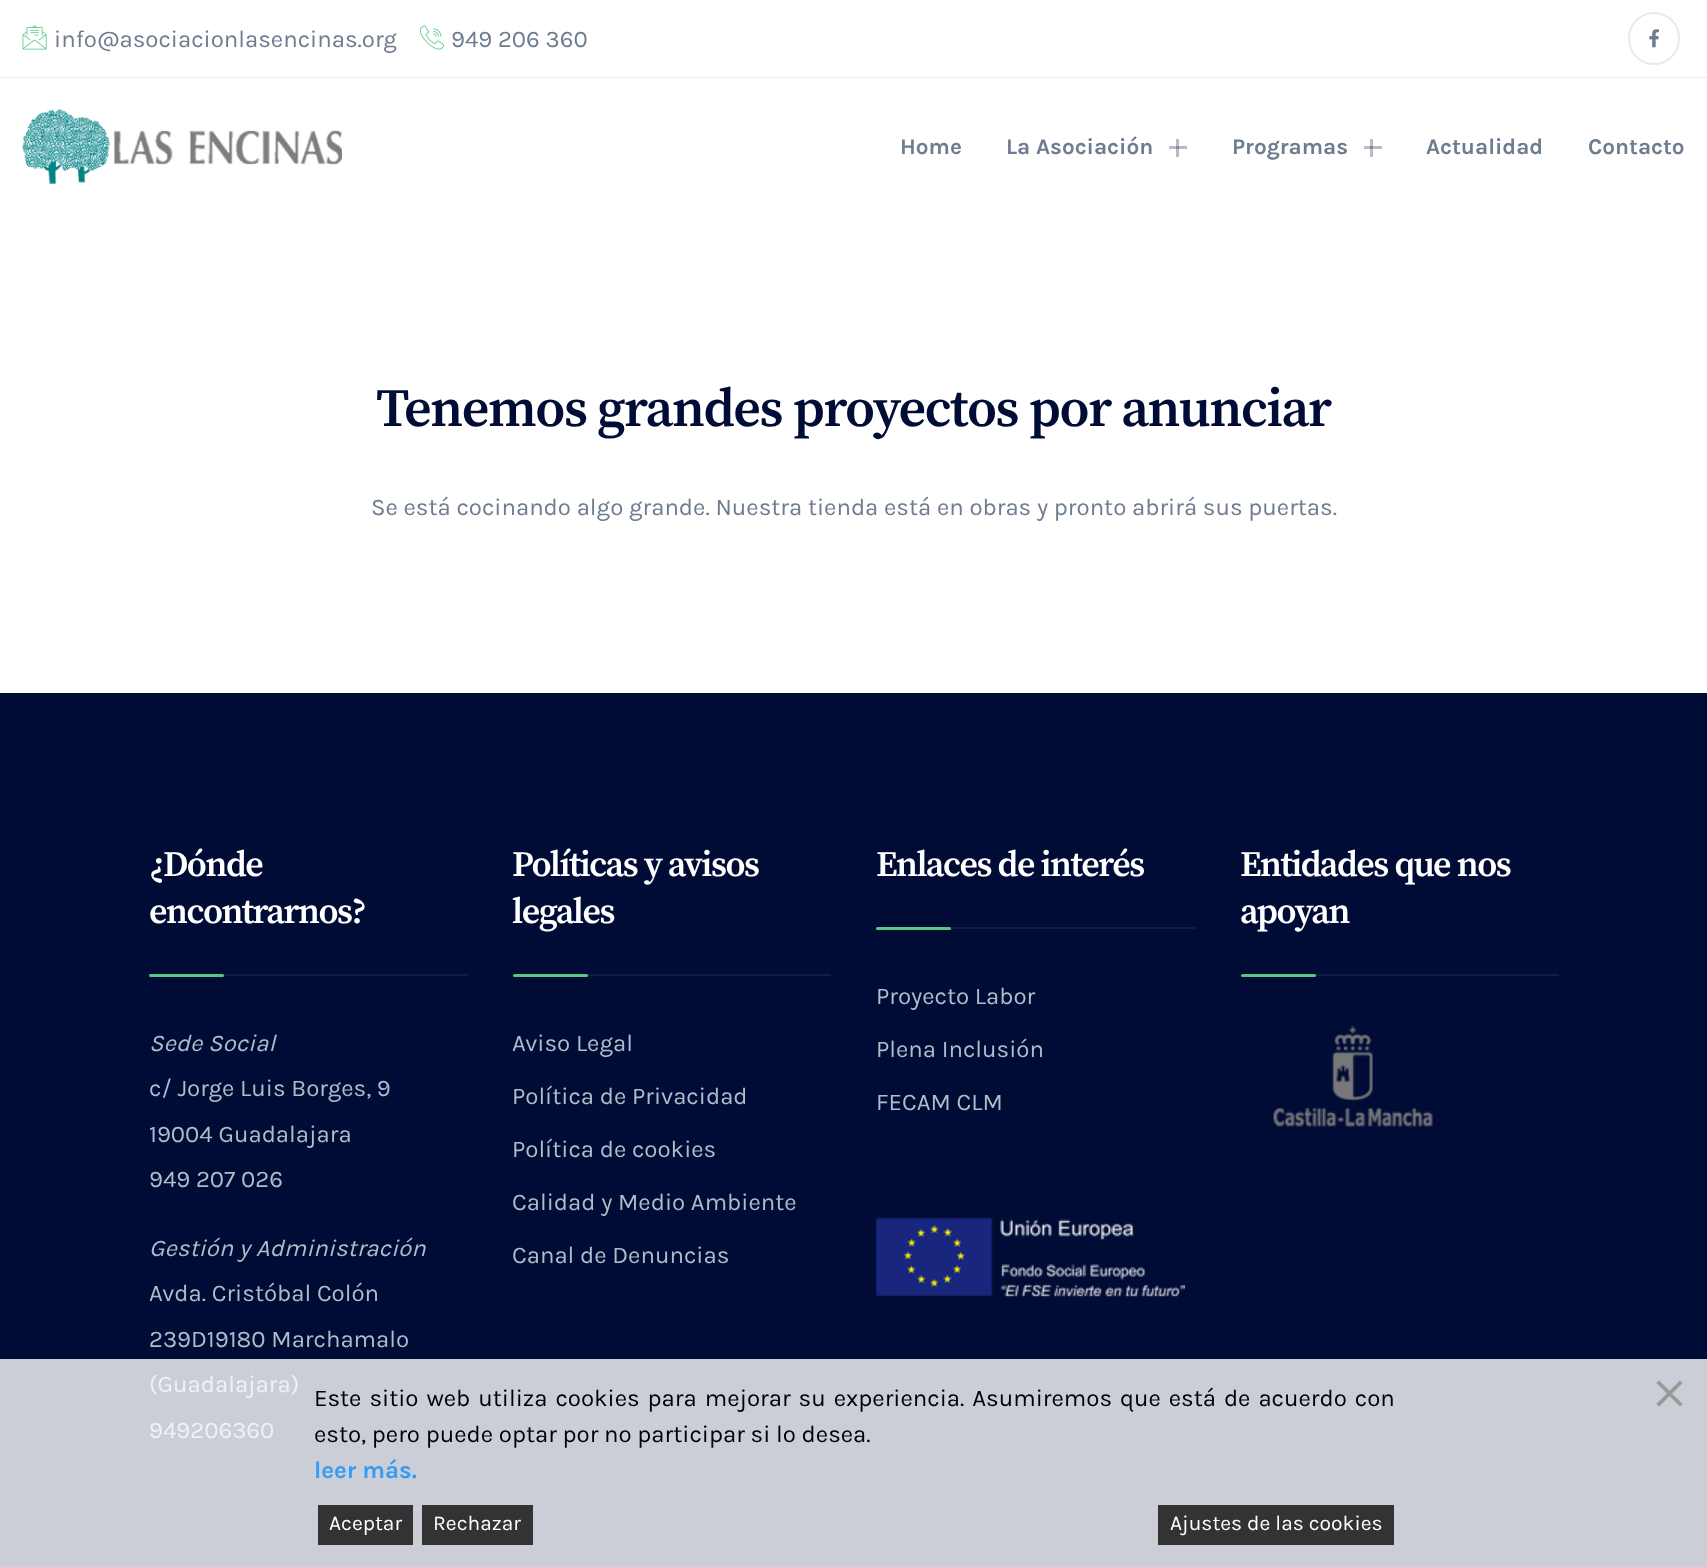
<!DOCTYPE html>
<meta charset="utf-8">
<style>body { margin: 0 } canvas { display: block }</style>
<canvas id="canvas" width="1707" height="1567"></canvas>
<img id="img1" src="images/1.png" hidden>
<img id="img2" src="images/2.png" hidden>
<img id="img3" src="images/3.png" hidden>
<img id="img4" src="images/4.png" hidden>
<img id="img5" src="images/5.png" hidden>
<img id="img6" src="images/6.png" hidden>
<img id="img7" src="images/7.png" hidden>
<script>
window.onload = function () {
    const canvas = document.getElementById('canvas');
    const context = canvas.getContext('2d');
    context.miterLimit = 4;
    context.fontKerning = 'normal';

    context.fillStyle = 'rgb(255, 255, 255)';
    context.fillRect(0, 0, 1707, 1567);
    context.fillStyle = 'rgb(236, 236, 236)';
    context.fillRect(0, 77, 1707, 1);
    context.drawImage(document.getElementById('img1'), 22, 25, 25, 25);
    context.drawImage(document.getElementById('img2'), 420, 25, 24, 25);
    context.beginPath();
    context.roundRect(1629, 13, 50, 51, 25);
    context.strokeStyle = 'rgb(234, 234, 234)';
    context.lineWidth = 2;
    context.stroke();
    context.drawImage(document.getElementById('img3'), 1649, 29, 10, 19);
    context.fillStyle = 'rgb(185, 187, 198)';
    context.fillRect(1364, 146, 18, 3);
    context.fillRect(1169, 146, 18, 3);
    context.drawImage(document.getElementById('img4'), 22, 109, 320, 75);
    context.fillRect(1176, 139, 3, 18);
    context.fillStyle = 'rgb(136, 140, 158)';
    context.fillRect(1176, 146, 3, 3);
    context.fillStyle = 'rgb(185, 187, 198)';
    context.fillRect(1370, 139, 3, 18);
    context.fillStyle = 'rgb(136, 140, 158)';
    context.fillRect(1370, 146, 3, 3);
    context.fillStyle = 'rgb(0, 12, 53)';
    context.fillRect(0, 693, 1707, 666);
    context.fillStyle = 'rgb(204, 206, 215)';
    context.fillRect(0, 1359, 1707, 208);
    context.fillStyle = 'rgb(16, 28, 68)';
    context.fillRect(149, 974, 319, 2);
    context.fillStyle = 'rgb(85, 200, 130)';
    context.beginPath();
    context.roundRect(149, 974, 75, 3, 1.5);
    context.fill();
    context.fillStyle = 'rgb(16, 28, 68)';
    context.fillRect(513, 974, 318, 2);
    context.fillStyle = 'rgb(85, 200, 130)';
    context.beginPath();
    context.roundRect(513, 974, 75, 3, 1.5);
    context.fill();
    context.fillStyle = 'rgb(16, 28, 68)';
    context.fillRect(876, 927, 320, 2);
    context.fillStyle = 'rgb(85, 200, 130)';
    context.beginPath();
    context.roundRect(876, 927, 75, 3, 1.5);
    context.fill();
    context.fillStyle = 'rgb(16, 28, 68)';
    context.fillRect(1241, 974, 318, 2);
    context.fillStyle = 'rgb(85, 200, 130)';
    context.beginPath();
    context.roundRect(1241, 974, 75, 3, 1.5);
    context.fill();
    context.drawImage(document.getElementById('img5'), 1273, 1025, 160, 102);
    context.drawImage(document.getElementById('img6'), 876, 1217, 309, 80);
    context.fillStyle = 'rgb(51, 51, 51)';
    context.fillRect(318, 1505, 95, 40);
    context.fillRect(422, 1505, 111, 40);
    context.fillRect(1158, 1505, 236, 40);
    context.drawImage(document.getElementById('img7'), 1656, 1380, 27, 27);
    context.font = '24px Karla';
    context.fillStyle = 'rgb(110, 124, 144)';
    context.fillText('info@asociacionlasencinas.org', 54, 47);
    context.fillText('949 206 360', 451, 47);
    context.font = 'bold 22.5px Karla';
    context.fillText('Home', 900, 154);
    context.fillText('La Asociación', 1006, 154);
    context.fillText('Programas', 1232, 154);
    context.fillText('Actualidad', 1426, 154);
    context.fillText('Contacto', 1588, 154);
    context.letterSpacing = '-1.5px';
    context.font = '600 54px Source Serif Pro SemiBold';
    context.fillStyle = 'rgb(0, 12, 53)';
    context.fillText('Tenemos grandes proyectos por anunciar', 376, 426);
    context.letterSpacing = '0px';
    context.font = '24px Karla';
    context.fillStyle = 'rgb(110, 124, 144)';
    context.fillText('Se está cocinando algo grande. Nuestra tienda está en obras y pronto abrirá sus puertas.', 371, 515);
    context.letterSpacing = '-1.5px';
    context.font = '600 36px Source Serif Pro SemiBold';
    context.fillStyle = 'rgb(255, 255, 255)';
    context.fillText('¿Dónde', 149, 876);
    context.fillText('encontrarnos?', 149, 923);
    context.letterSpacing = '0px';
    context.font = 'italic 24px Karla';
    context.fillStyle = 'rgb(173, 189, 202)';
    context.fillText('Sede Social', 149, 1051);
    context.font = '24px Karla';
    context.fillText('c/ Jorge Luis Borges, 9', 149, 1096);
    context.fillText('19004 Guadalajara', 149, 1142);
    context.fillText('949 207 026', 149, 1187);
    context.font = 'italic 24px Karla';
    context.fillText('Gestión y Administración', 149, 1256);
    context.font = '24px Karla';
    context.fillText('Avda. Cristóbal Colón', 149, 1301);
    context.fillText('239D19180 Marchamalo', 149, 1347);
    context.fillStyle = 'rgb(239, 242, 244)';
    context.fillText('(Guadalajara)', 149, 1392);
    context.fillText('949206360', 149, 1438);
    context.letterSpacing = '-1.5px';
    context.font = '600 36px Source Serif Pro SemiBold';
    context.fillStyle = 'rgb(255, 255, 255)';
    context.fillText('Políticas y avisos', 512, 876);
    context.fillText('legales', 512, 923);
    context.letterSpacing = '0px';
    context.font = '24px Karla';
    context.fillStyle = 'rgb(173, 189, 202)';
    context.fillText('Aviso Legal', 512, 1051);
    context.fillText('Política de Privacidad', 512, 1104);
    context.fillText('Política de cookies', 512, 1157);
    context.fillText('Calidad y Medio Ambiente', 512, 1210);
    context.fillText('Canal de Denuncias', 512, 1263);
    context.letterSpacing = '-1.5px';
    context.font = '600 36px Source Serif Pro SemiBold';
    context.fillStyle = 'rgb(255, 255, 255)';
    context.fillText('Enlaces de interés', 876, 876);
    context.letterSpacing = '0px';
    context.font = '24px Karla';
    context.fillStyle = 'rgb(173, 189, 202)';
    context.fillText('Proyecto Labor', 876, 1004);
    context.fillText('Plena Inclusión', 876, 1057);
    context.fillText('FECAM CLM', 876, 1110);
    context.letterSpacing = '-1.5px';
    context.font = '600 36px Source Serif Pro SemiBold';
    context.fillStyle = 'rgb(255, 255, 255)';
    context.fillText('Entidades que nos', 1240, 876);
    context.fillText('apoyan', 1240, 923);
    context.letterSpacing = '0px';
    context.wordSpacing = '2.25px';
    context.font = '24px Karla';
    context.fillStyle = 'rgb(0, 0, 0)';
    context.fillText('Este sitio web utiliza cookies para mejorar su experiencia. Asumiremos que está de acuerdo con', 314, 1406);
    context.wordSpacing = '0px';
    context.fillText('esto, pero puede optar por no participar si lo desea.', 314, 1442);
    context.font = 'bold 24px Karla';
    context.fillStyle = 'rgb(53, 155, 245)';
    context.fillText('leer más.', 314, 1478);
    context.font = '21px Karla';
    context.fillStyle = 'rgb(255, 255, 255)';
    context.fillText('Aceptar', 329, 1530);
    context.fillText('Rechazar', 433, 1530);
    context.fillText('Ajustes de las cookies', 1170, 1530);
};
</script>
